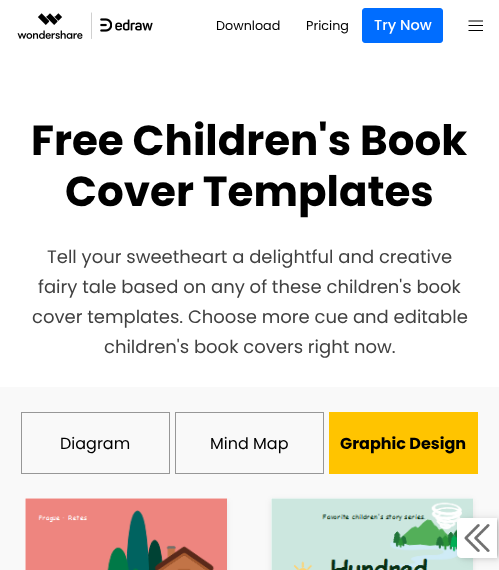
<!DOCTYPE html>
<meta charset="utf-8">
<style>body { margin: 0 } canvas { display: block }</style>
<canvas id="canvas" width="499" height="570"></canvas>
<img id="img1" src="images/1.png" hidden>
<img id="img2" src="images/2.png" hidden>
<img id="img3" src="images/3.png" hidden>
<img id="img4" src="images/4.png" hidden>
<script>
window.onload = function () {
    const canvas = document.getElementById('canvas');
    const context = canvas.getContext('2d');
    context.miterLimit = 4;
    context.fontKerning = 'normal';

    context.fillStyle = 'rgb(255, 255, 255)';
    context.fillRect(0, 0, 499, 570);
    context.drawImage(document.getElementById('img1'), 17, 12, 136, 27);
    context.fillStyle = 'rgb(0, 109, 255)';
    context.beginPath();
    context.roundRect(362.5, 8.5, 80, 34, 2.5);
    context.fill();
    context.strokeStyle = 'rgb(0, 109, 255)';
    context.stroke();
    context.beginPath();
    context.moveTo(468.5, 21);
    context.lineTo(483, 21);
    context.moveTo(468.5, 25.5);
    context.lineTo(483, 25.5);
    context.moveTo(468.5, 30.5);
    context.lineTo(483, 30.5);
    context.strokeStyle = 'rgb(0, 0, 0)';
    context.lineWidth = 1.2;
    context.lineJoin = 'bevel';
    context.stroke();
    context.fillStyle = 'rgb(249, 249, 249)';
    context.fillRect(0, 387, 499, 183);
    context.strokeStyle = 'rgb(151, 151, 151)';
    context.lineWidth = 1;
    context.lineJoin = 'miter';
    context.strokeRect(21.5, 412.5, 148, 61);
    context.strokeRect(175.5, 412.5, 148, 61);
    context.fillStyle = 'rgb(255, 196, 0)';
    context.fillRect(329, 412, 149, 62);
    context.save();
    context.beginPath();
    context.rect(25, 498, 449, 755);
    context.clip();
    context.fillStyle = 'rgba(0, 0, 0, 0.07)';
    context.filter = 'blur(3px)';
    context.beginPath();
    context.rect(25, 500, 202, 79);
    context.fill();
    context.filter = 'none';
    context.restore();
    context.drawImage(document.getElementById('img2'), 25, 498, 202, 72);
    context.fillStyle = 'rgba(0, 0, 0, 0.07)';
    context.filter = 'blur(3px)';
    context.beginPath();
    context.rect(271, 500, 202, 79);
    context.fill();
    context.filter = 'none';
    context.drawImage(document.getElementById('img3'), 271, 498, 202, 72);
    context.fillStyle = 'rgba(0, 0, 0, 0.1)';
    context.filter = 'blur(5.5px)';
    context.beginPath();
    context.roundRect(464, 519, 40, 40, 4);
    context.fill();
    context.filter = 'none';
    context.fillStyle = 'rgba(0, 0, 0, 0.08)';
    context.filter = 'blur(0.5px)';
    context.beginPath();
    context.roundRect(458, 518, 40, 40, 4);
    context.fill();
    context.filter = 'none';
    context.fillStyle = 'rgba(0, 0, 0, 0.1)';
    context.filter = 'blur(2px)';
    context.beginPath();
    context.roundRect(459, 519, 40, 40, 4);
    context.fill();
    context.filter = 'none';
    context.fillStyle = 'rgb(255, 255, 255)';
    context.beginPath();
    context.moveTo(497, 518);
    context.lineTo(461, 518);
    context.bezierCurveTo(459, 518, 457, 520, 457, 522);
    context.lineTo(457, 554);
    context.bezierCurveTo(457, 556, 459, 558, 461, 558);
    context.lineTo(497, 558);
    context.closePath();
    context.fill();
    context.drawImage(document.getElementById('img4'), 464, 524, 26, 28);
    context.font = '12.75px Poppins';
    context.fillStyle = 'rgb(0, 0, 0)';
    context.fillText('Download', 216, 30);
    context.fillText('Pricing', 306, 30);
    context.font = '500 14.5px Poppins';
    context.fillStyle = 'rgb(255, 255, 255)';
    context.fillText('Try Now', 374, 30);
    context.font = 'bold 42px Poppins';
    context.fillStyle = 'rgb(0, 0, 0)';
    context.fillText('Free Children\'s Book', 31, 155);
    context.fillText('Cover Templates', 65, 206);
    context.font = '18px Poppins';
    context.fillStyle = 'rgb(65, 65, 65)';
    context.fillText('Tell your sweetheart a delightful and creative', 47, 263);
    context.fillText('fairy tale based on any of these children\'s book', 38, 293);
    context.fillText('cover templates. Choose more cue and editable', 32, 323);
    context.fillText('children\'s book covers right now.', 104, 353);
    context.font = '16px Poppins';
    context.fillStyle = 'rgb(0, 0, 0)';
    context.fillText('Diagram', 60, 449);
    context.fillText('Mind Map', 210, 449);
    context.font = 'bold 16px Poppins';
    context.fillText('Graphic Design', 340, 449);
};
</script>
